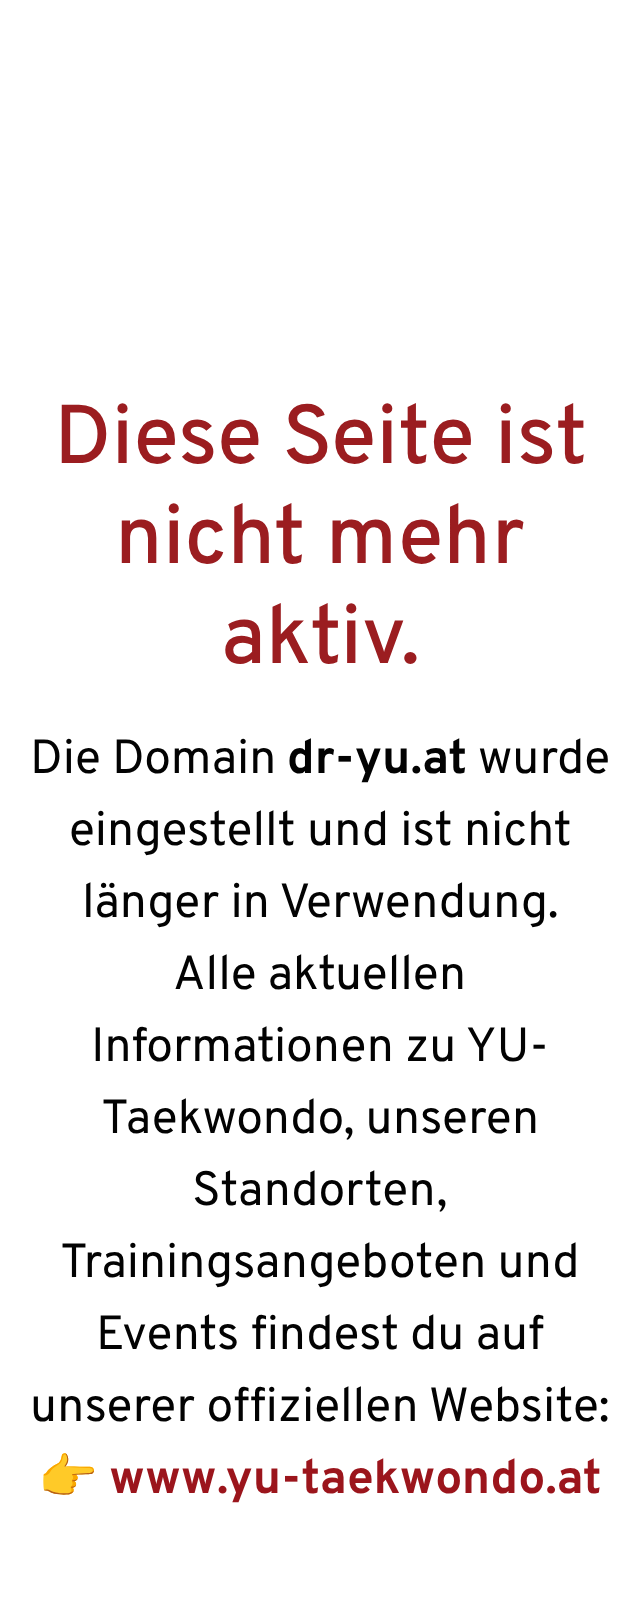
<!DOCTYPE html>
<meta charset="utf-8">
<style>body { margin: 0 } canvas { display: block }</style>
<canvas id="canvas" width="639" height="1608"></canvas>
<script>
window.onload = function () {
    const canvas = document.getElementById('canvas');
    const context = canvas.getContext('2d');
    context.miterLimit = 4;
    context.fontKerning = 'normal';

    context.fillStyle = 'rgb(255, 255, 255)';
    context.fillRect(0, 0, 639, 1608);
    context.font = '500 83.25px Overpass';
    context.fillStyle = 'rgb(155, 29, 32)';
    context.fillText('Diese Seite ist', 54, 463);
    context.fillText('nicht mehr', 115, 563);
    context.fillText('aktiv.', 221, 663);
    context.font = '48px Overpass';
    context.fillStyle = 'rgb(2, 2, 2)';
    context.fillText('Die Domain', 30, 773);
    context.font = 'bold 48px Overpass';
    context.fillText('dr-yu.at', 287, 773);
    context.font = '48px Overpass';
    context.fillText('wurde', 478, 773);
    context.fillText('eingestellt und ist nicht', 69, 845);
    context.fillText('länger in Verwendung.', 82, 917);
    context.fillText('Alle aktuellen', 173, 989);
    context.fillText('Informationen zu YU-', 91, 1061);
    context.fillText('Taekwondo, unseren', 101, 1133);
    context.fillText('Standorten,', 192, 1205);
    context.fillText('Trainingsangeboten und', 60, 1277);
    context.fillText('Events findest du auf', 96, 1349);
    context.fillText('unserer offiziellen Website:', 30, 1421);
    context.font = '48px Noto Color Emoji';
    context.fillText('👉', 38, 1493);
    context.font = 'bold 48px Overpass';
    context.fillStyle = 'rgb(155, 21, 28)';
    context.fillText('www.yu-taekwondo.at', 109, 1493);
};
</script>
